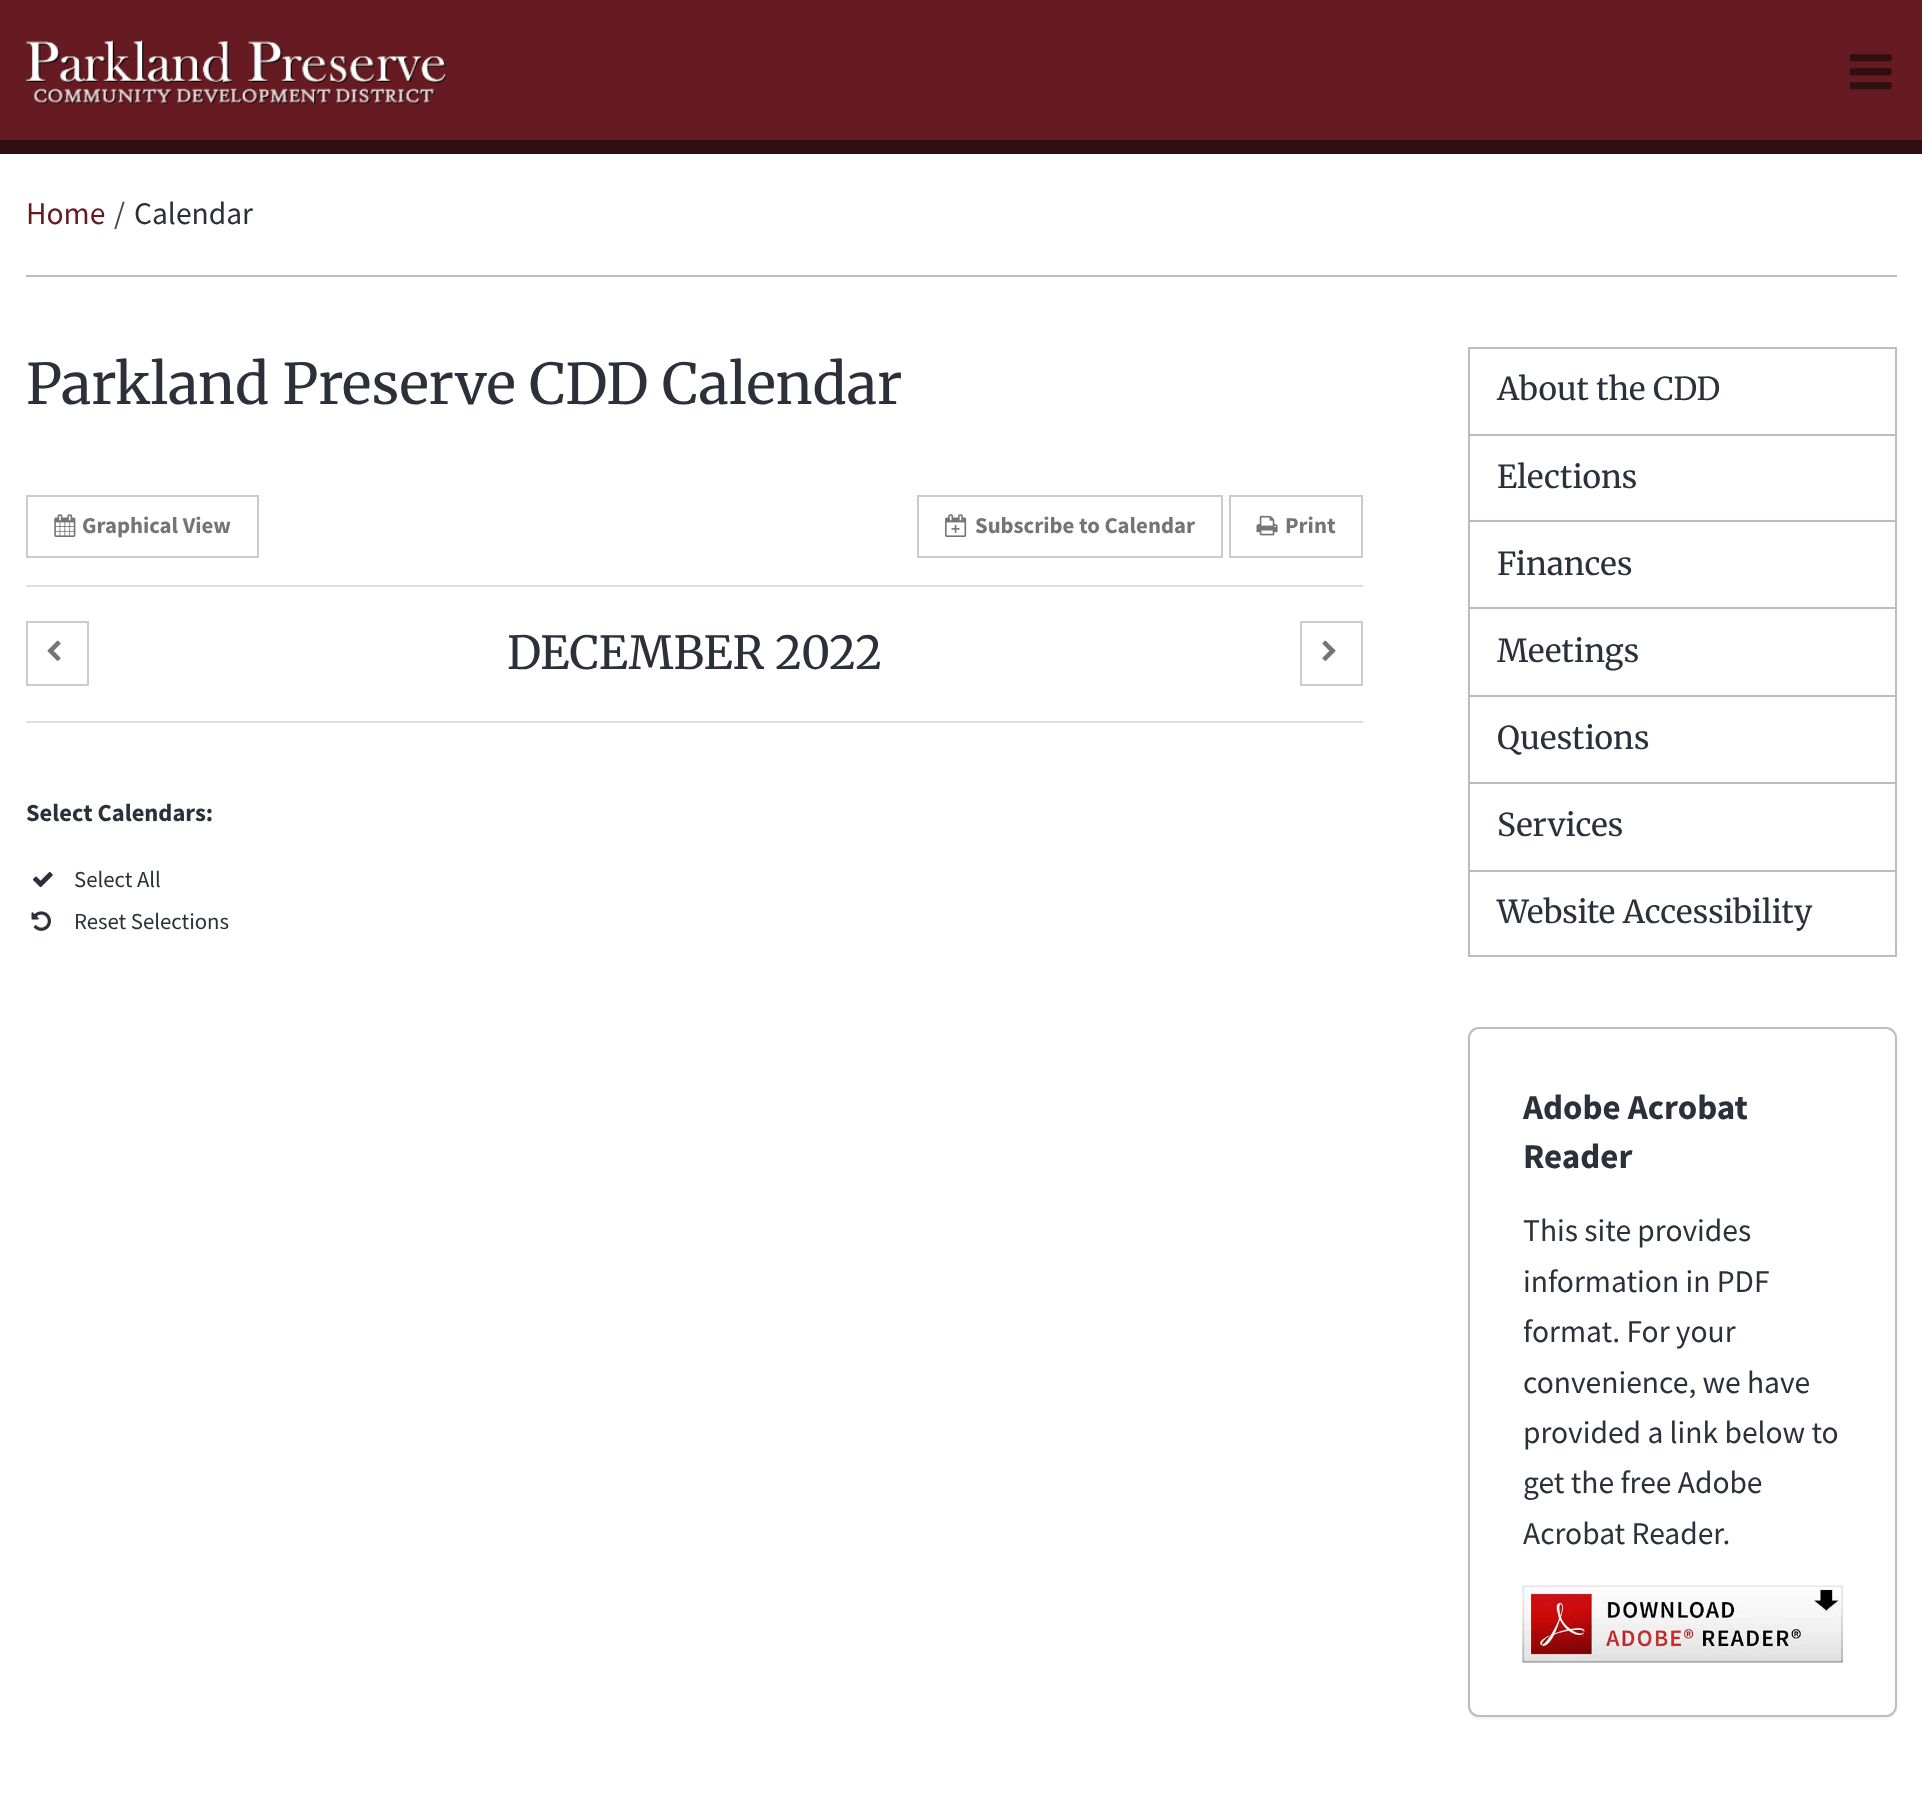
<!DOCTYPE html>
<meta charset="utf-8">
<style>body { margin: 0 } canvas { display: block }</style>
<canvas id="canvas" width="1922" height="1808"></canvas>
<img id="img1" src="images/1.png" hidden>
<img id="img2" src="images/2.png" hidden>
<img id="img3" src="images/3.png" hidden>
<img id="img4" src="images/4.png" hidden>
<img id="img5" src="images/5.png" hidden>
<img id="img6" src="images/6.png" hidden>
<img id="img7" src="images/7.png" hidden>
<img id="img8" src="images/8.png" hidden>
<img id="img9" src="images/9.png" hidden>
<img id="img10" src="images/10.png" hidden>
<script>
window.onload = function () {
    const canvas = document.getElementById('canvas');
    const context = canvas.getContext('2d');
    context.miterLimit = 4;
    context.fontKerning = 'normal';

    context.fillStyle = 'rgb(255, 255, 255)';
    context.fillRect(0, 0, 1922, 1808);
    context.fillStyle = 'rgb(102, 26, 33)';
    context.fillRect(0, 0, 1922, 140);
    context.fillStyle = 'rgb(48, 15, 18)';
    context.fillRect(0, 140, 1922, 14);
    context.drawImage(document.getElementById('img1'), 26, 40, 421, 64);
    context.drawImage(document.getElementById('img2'), 1849, 54, 43, 36);
    context.fillStyle = 'rgb(185, 188, 195)';
    context.fillRect(26, 275, 1871, 2);
    context.strokeStyle = 'rgb(204, 204, 204)';
    context.lineWidth = 2;
    context.strokeRect(27, 496, 231, 61);
    context.drawImage(document.getElementById('img3'), 54, 514, 22, 23);
    context.strokeRect(918, 496, 304, 61);
    context.drawImage(document.getElementById('img4'), 945, 514, 22, 23);
    context.strokeRect(1230, 496, 132, 61);
    context.drawImage(document.getElementById('img5'), 1256, 515, 22, 21);
    context.fillStyle = 'rgb(221, 221, 221)';
    context.fillRect(26, 585, 1337, 2);
    context.fillRect(26, 721, 1337, 2);
    context.strokeRect(27, 622, 61, 63);
    context.drawImage(document.getElementById('img6'), 47, 640, 14, 21);
    context.strokeRect(1301, 622, 61, 63);
    context.drawImage(document.getElementById('img7'), 1322, 640, 14, 21);
    context.drawImage(document.getElementById('img8'), 33, 872, 20, 16);
    context.drawImage(document.getElementById('img9'), 31, 911, 20, 20);
    context.strokeStyle = 'rgb(185, 188, 195)';
    context.strokeRect(1469, 348, 427, 608);
    context.fillStyle = 'rgb(185, 188, 195)';
    context.fillRect(1470, 434, 425, 2);
    context.fillRect(1470, 520, 425, 2);
    context.fillRect(1470, 607, 425, 2);
    context.fillRect(1470, 695, 425, 2);
    context.fillRect(1470, 782, 425, 2);
    context.fillRect(1470, 870, 425, 2);
    context.fillStyle = 'rgba(0, 0, 0, 0.05)';
    context.filter = 'blur(1px)';
    context.beginPath();
    context.roundRect(1468, 1029, 429, 690, 11);
    context.fill();
    context.filter = 'none';
    context.fillStyle = 'rgb(255, 255, 255)';
    context.beginPath();
    context.roundRect(1469, 1028, 427, 688, 10);
    context.fill();
    context.stroke();
    context.drawImage(document.getElementById('img10'), 1522, 1585, 321, 78);
    context.font = '31.5px Source Sans Pro';
    context.fillStyle = 'rgb(102, 26, 33)';
    context.fillText('Home', 26, 224);
    context.fillStyle = 'rgb(64, 71, 86)';
    context.fillText('/', 114, 224);
    context.fillStyle = 'rgb(43, 48, 58)';
    context.fillText('Calendar', 134, 224);
    context.font = '300 56px Merriweather';
    context.fillText('Parkland Preserve CDD Calendar', 26, 404);
    context.font = 'bold 22.75px Source Sans Pro';
    context.fillStyle = 'rgb(117, 117, 117)';
    context.fillText('Graphical View', 82, 533);
    context.fillText('Subscribe to Calendar', 975, 533);
    context.fillText('Print', 1285, 533);
    context.font = '300 45.5px Merriweather';
    context.fillStyle = 'rgb(43, 48, 58)';
    context.fillText('DECEMBER 2022', 507, 669);
    context.font = 'bold 24.5px Source Sans Pro';
    context.fillText('Select Calendars:', 26, 821);
    context.font = '22.75px Source Sans Pro';
    context.fillText('Select All', 74, 887);
    context.fillText('Reset Selections', 74, 929);
    context.font = '300 31.5px Merriweather';
    context.fillText('About the CDD', 1497, 400);
    context.fillText('Elections', 1497, 488);
    context.fillText('Finances', 1497, 575);
    context.fillText('Meetings', 1497, 662);
    context.fillText('Questions', 1497, 749);
    context.fillText('Services', 1497, 836);
    context.fillText('Website Accessibility', 1497, 923);
    context.font = 'bold 35px Source Sans Pro';
    context.fillText('Adobe Acrobat', 1523, 1119);
    context.fillText('Reader', 1523, 1168);
    context.font = '31.5px Source Sans Pro';
    context.fillText('This site provides', 1523, 1241);
    context.fillText('information in PDF', 1523, 1292);
    context.fillText('format. For your', 1523, 1342);
    context.fillText('convenience, we have', 1523, 1393);
    context.fillText('provided a link below to', 1523, 1443);
    context.fillText('get the free Adobe', 1523, 1493);
    context.fillText('Acrobat Reader.', 1523, 1544);
};
</script>
